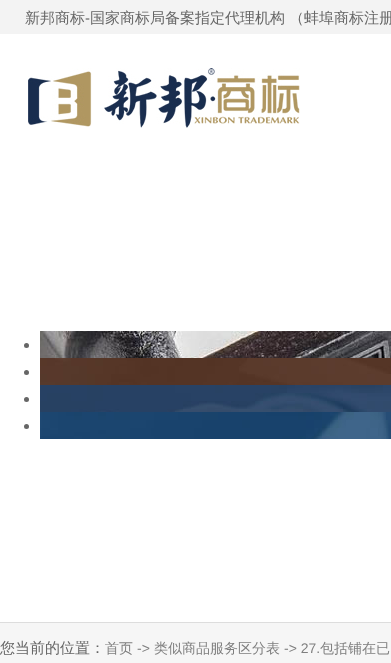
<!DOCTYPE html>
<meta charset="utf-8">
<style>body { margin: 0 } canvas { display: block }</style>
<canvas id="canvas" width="391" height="663"></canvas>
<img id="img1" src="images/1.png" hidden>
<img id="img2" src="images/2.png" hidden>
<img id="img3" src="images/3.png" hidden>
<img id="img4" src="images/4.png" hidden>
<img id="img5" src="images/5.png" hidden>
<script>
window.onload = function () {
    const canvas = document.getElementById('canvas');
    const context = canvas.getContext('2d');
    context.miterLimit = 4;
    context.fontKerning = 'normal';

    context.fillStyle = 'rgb(255, 255, 255)';
    context.fillRect(0, 0, 391, 663);
    context.fillStyle = 'rgb(243, 243, 243)';
    context.fillRect(0, 0, 391, 34);
    context.drawImage(document.getElementById('img1'), 28, 68, 272, 60);
    context.drawImage(document.getElementById('img2'), 40, 331, 351, 27);
    context.fillStyle = 'rgb(102, 102, 102)';
    context.beginPath();
    context.arc(26.5, 345.5, 2.5, 0, 2 * Math.PI);
    context.fill();
    context.drawImage(document.getElementById('img3'), 40, 358, 351, 27);
    context.beginPath();
    context.arc(26.5, 372.5, 2.5, 0, 2 * Math.PI);
    context.fill();
    context.drawImage(document.getElementById('img4'), 40, 385, 351, 27);
    context.beginPath();
    context.arc(26.5, 399.5, 2.5, 0, 2 * Math.PI);
    context.fill();
    context.drawImage(document.getElementById('img5'), 40, 412, 351, 27);
    context.beginPath();
    context.arc(26.5, 426.5, 2.5, 0, 2 * Math.PI);
    context.fill();
    context.fillStyle = 'rgb(221, 221, 221)';
    context.fillRect(0, 622, 391, 1);
    context.fillStyle = 'rgb(246, 246, 246)';
    context.fillRect(0, 623, 391, 40);
    context.font = '500 15px WenQuanYi Zen Hei';
    context.fillStyle = 'rgb(102, 102, 102)';
    context.fillText('新邦商标', 25, 23);
    context.font = '15px Liberation Sans';
    context.fillText('-', 85, 23);
    context.font = '500 15px WenQuanYi Zen Hei';
    context.fillText('国家商标局备案指定代理机构', 90, 23);
    context.fillText('（蚌埠商标注册', 289, 23);
    context.fillText('您当前的位置：', 0, 653);
    context.font = '500 14px WenQuanYi Zen Hei';
    context.fillStyle = 'rgb(127, 127, 127)';
    context.fillText('首页', 105, 653);
    context.font = '14px Liberation Sans';
    context.fillText('->', 137, 653);
    context.font = '500 14px WenQuanYi Zen Hei';
    context.fillText('类似商品服务区分表', 154, 653);
    context.font = '14px Liberation Sans';
    context.fillText('-> 27.', 284, 653);
    context.font = '500 14px WenQuanYi Zen Hei';
    context.fillText('包括铺在已', 320, 653);
};
</script>
